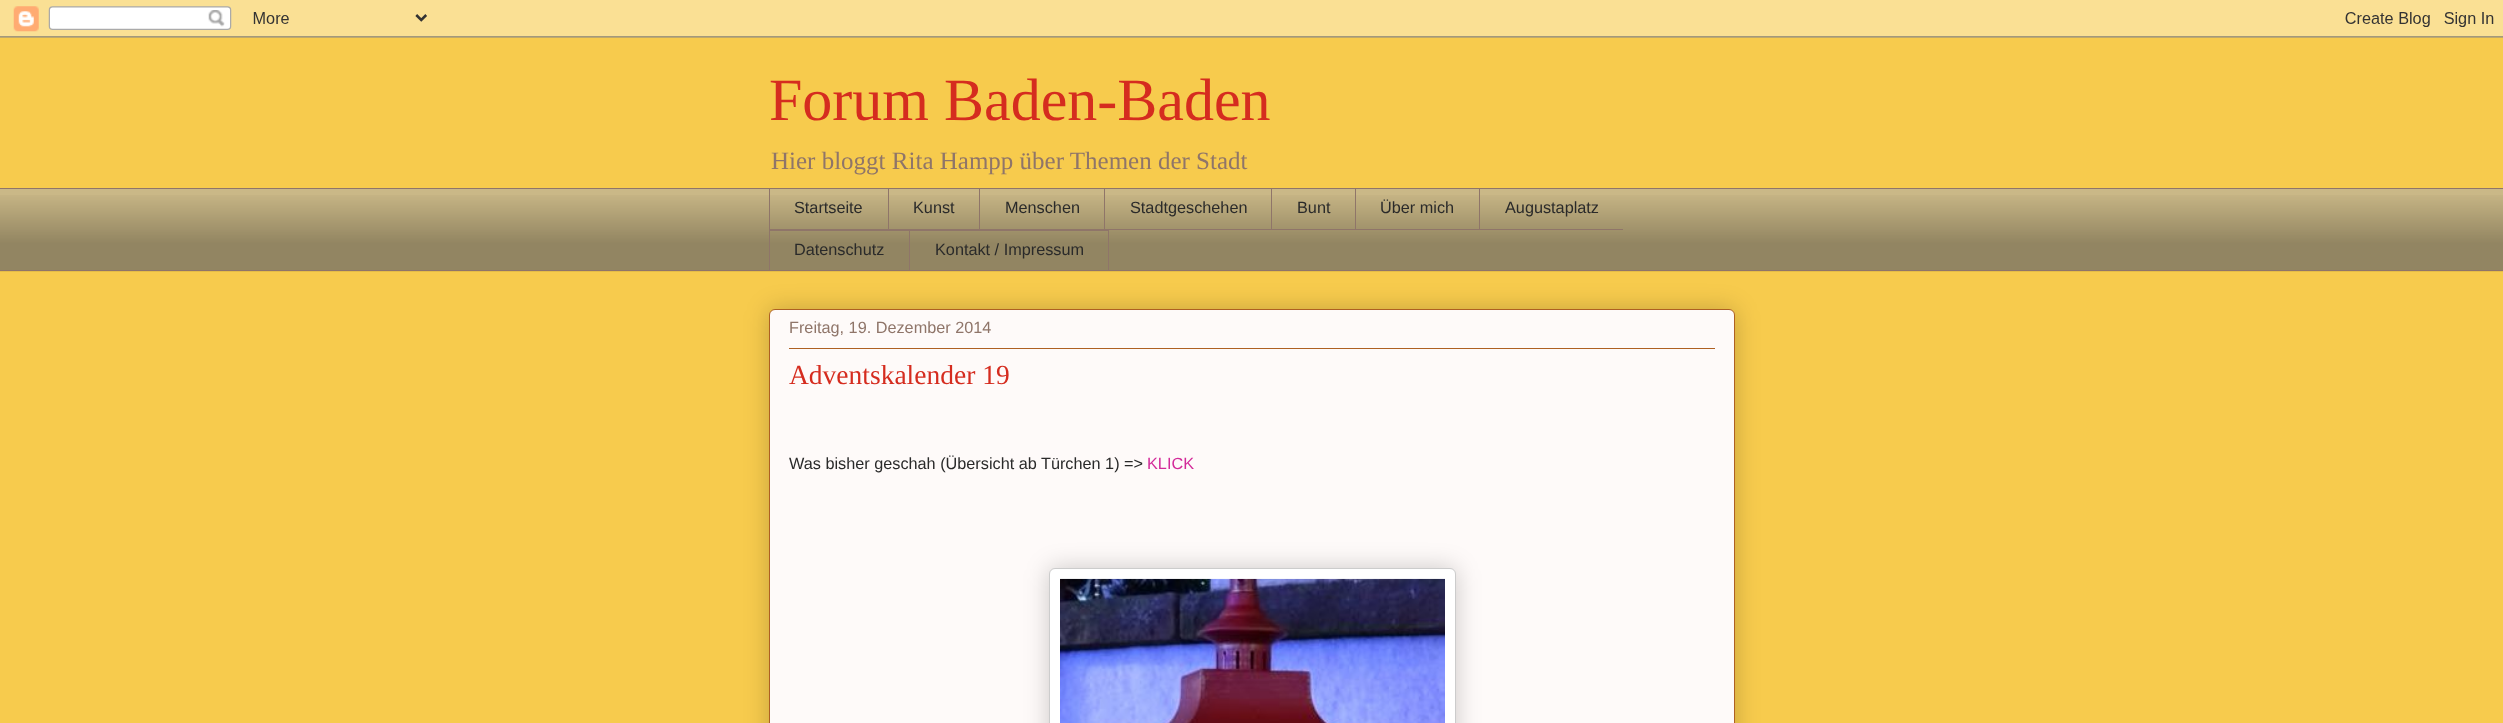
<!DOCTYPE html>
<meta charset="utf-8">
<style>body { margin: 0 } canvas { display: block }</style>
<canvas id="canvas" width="2503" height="723"></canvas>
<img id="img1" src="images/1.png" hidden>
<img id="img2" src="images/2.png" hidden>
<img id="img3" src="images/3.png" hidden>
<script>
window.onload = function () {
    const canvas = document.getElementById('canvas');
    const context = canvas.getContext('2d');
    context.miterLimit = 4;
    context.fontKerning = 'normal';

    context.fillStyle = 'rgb(247, 203, 77)';
    context.fillRect(0, 0, 2503, 723);
    context.drawImage(document.getElementById('img1'), 0, 0, 2503, 38);
    context.fillStyle = 'rgb(202, 184, 135)';
    context.fillRect(0, 189, 2503, 81);
    context.drawImage(document.getElementById('img2'), 0, 195, 2503, 77);
    context.fillStyle = 'rgb(143, 117, 105)';
    context.fillRect(0, 188, 2503, 1);
    context.fillRect(769, 229, 854, 1);
    context.fillRect(769, 188, 1, 42);
    context.fillRect(888, 188, 1, 42);
    context.fillRect(979, 188, 1, 42);
    context.fillRect(1104, 188, 1, 42);
    context.fillRect(1271, 188, 1, 42);
    context.fillRect(1355, 188, 1, 42);
    context.fillRect(1479, 188, 1, 42);
    context.fillRect(769, 230, 140, 1);
    context.fillRect(769, 230, 1, 41);
    context.strokeStyle = 'rgb(143, 117, 105)';
    context.strokeRect(909.5, 230.5, 199, 40);
    context.fillRect(0, 270, 2503, 1);
    context.fillStyle = 'rgba(0, 0, 0, 0.2)';
    context.filter = 'blur(12.5px)';
    context.beginPath();
    context.roundRect(769, 309, 966, 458, 6);
    context.fill();
    context.filter = 'none';
    context.fillStyle = 'rgb(254, 250, 249)';
    context.beginPath();
    context.roundRect(769.5, 309.5, 965, 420, 5.5);
    context.fill();
    context.strokeStyle = 'rgb(174, 96, 34)';
    context.stroke();
    context.fillStyle = 'rgb(174, 96, 34)';
    context.fillRect(789, 348, 926, 1);
    context.fillStyle = 'rgba(0, 0, 0, 0.2)';
    context.filter = 'blur(12.5px)';
    context.beginPath();
    context.roundRect(1049, 568, 407, 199, 6);
    context.fill();
    context.filter = 'none';
    context.fillStyle = 'rgb(255, 255, 255)';
    context.beginPath();
    context.roundRect(1049.5, 568.5, 406, 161, 5.5);
    context.fill();
    context.strokeStyle = 'rgb(204, 204, 204)';
    context.stroke();
    context.drawImage(document.getElementById('img3'), 1060, 578, 385, 145);
    context.font = '60px Liberation Serif';
    context.fillStyle = 'rgb(213, 44, 31)';
    context.fillText('Forum Baden-Baden', 769, 120);
    context.font = '25px Liberation Serif';
    context.fillStyle = 'rgb(143, 117, 105)';
    context.fillText('Hier bloggt Rita Hampp über Themen der Stadt', 771, 169);
    context.font = '16.25px Liberation Sans';
    context.fillStyle = 'rgb(42, 42, 42)';
    context.fillText('Startseite', 794, 213);
    context.fillText('Kunst', 913, 213);
    context.fillText('Menschen', 1005, 213);
    context.fillText('Stadtgeschehen', 1130, 213);
    context.fillText('Bunt', 1297, 213);
    context.fillText('Über mich', 1380, 213);
    context.fillText('Augustaplatz', 1505, 213);
    context.fillText('Datenschutz', 794, 255);
    context.fillText('Kontakt / Impressum', 935, 255);
    context.fillStyle = 'rgb(143, 117, 105)';
    context.fillText('Freitag, 19. Dezember 2014', 789, 333);
    context.font = '27.5px Liberation Serif';
    context.fillStyle = 'rgb(213, 44, 31)';
    context.fillText('Adventskalender 19', 789, 384);
    context.font = '16.25px Liberation Sans';
    context.fillStyle = 'rgb(42, 42, 42)';
    context.fillText('Was bisher geschah (Übersicht ab Türchen 1) =>', 789, 469);
    context.fillStyle = 'rgb(211, 42, 153)';
    context.fillText('KLICK', 1147, 469);
};
</script>
